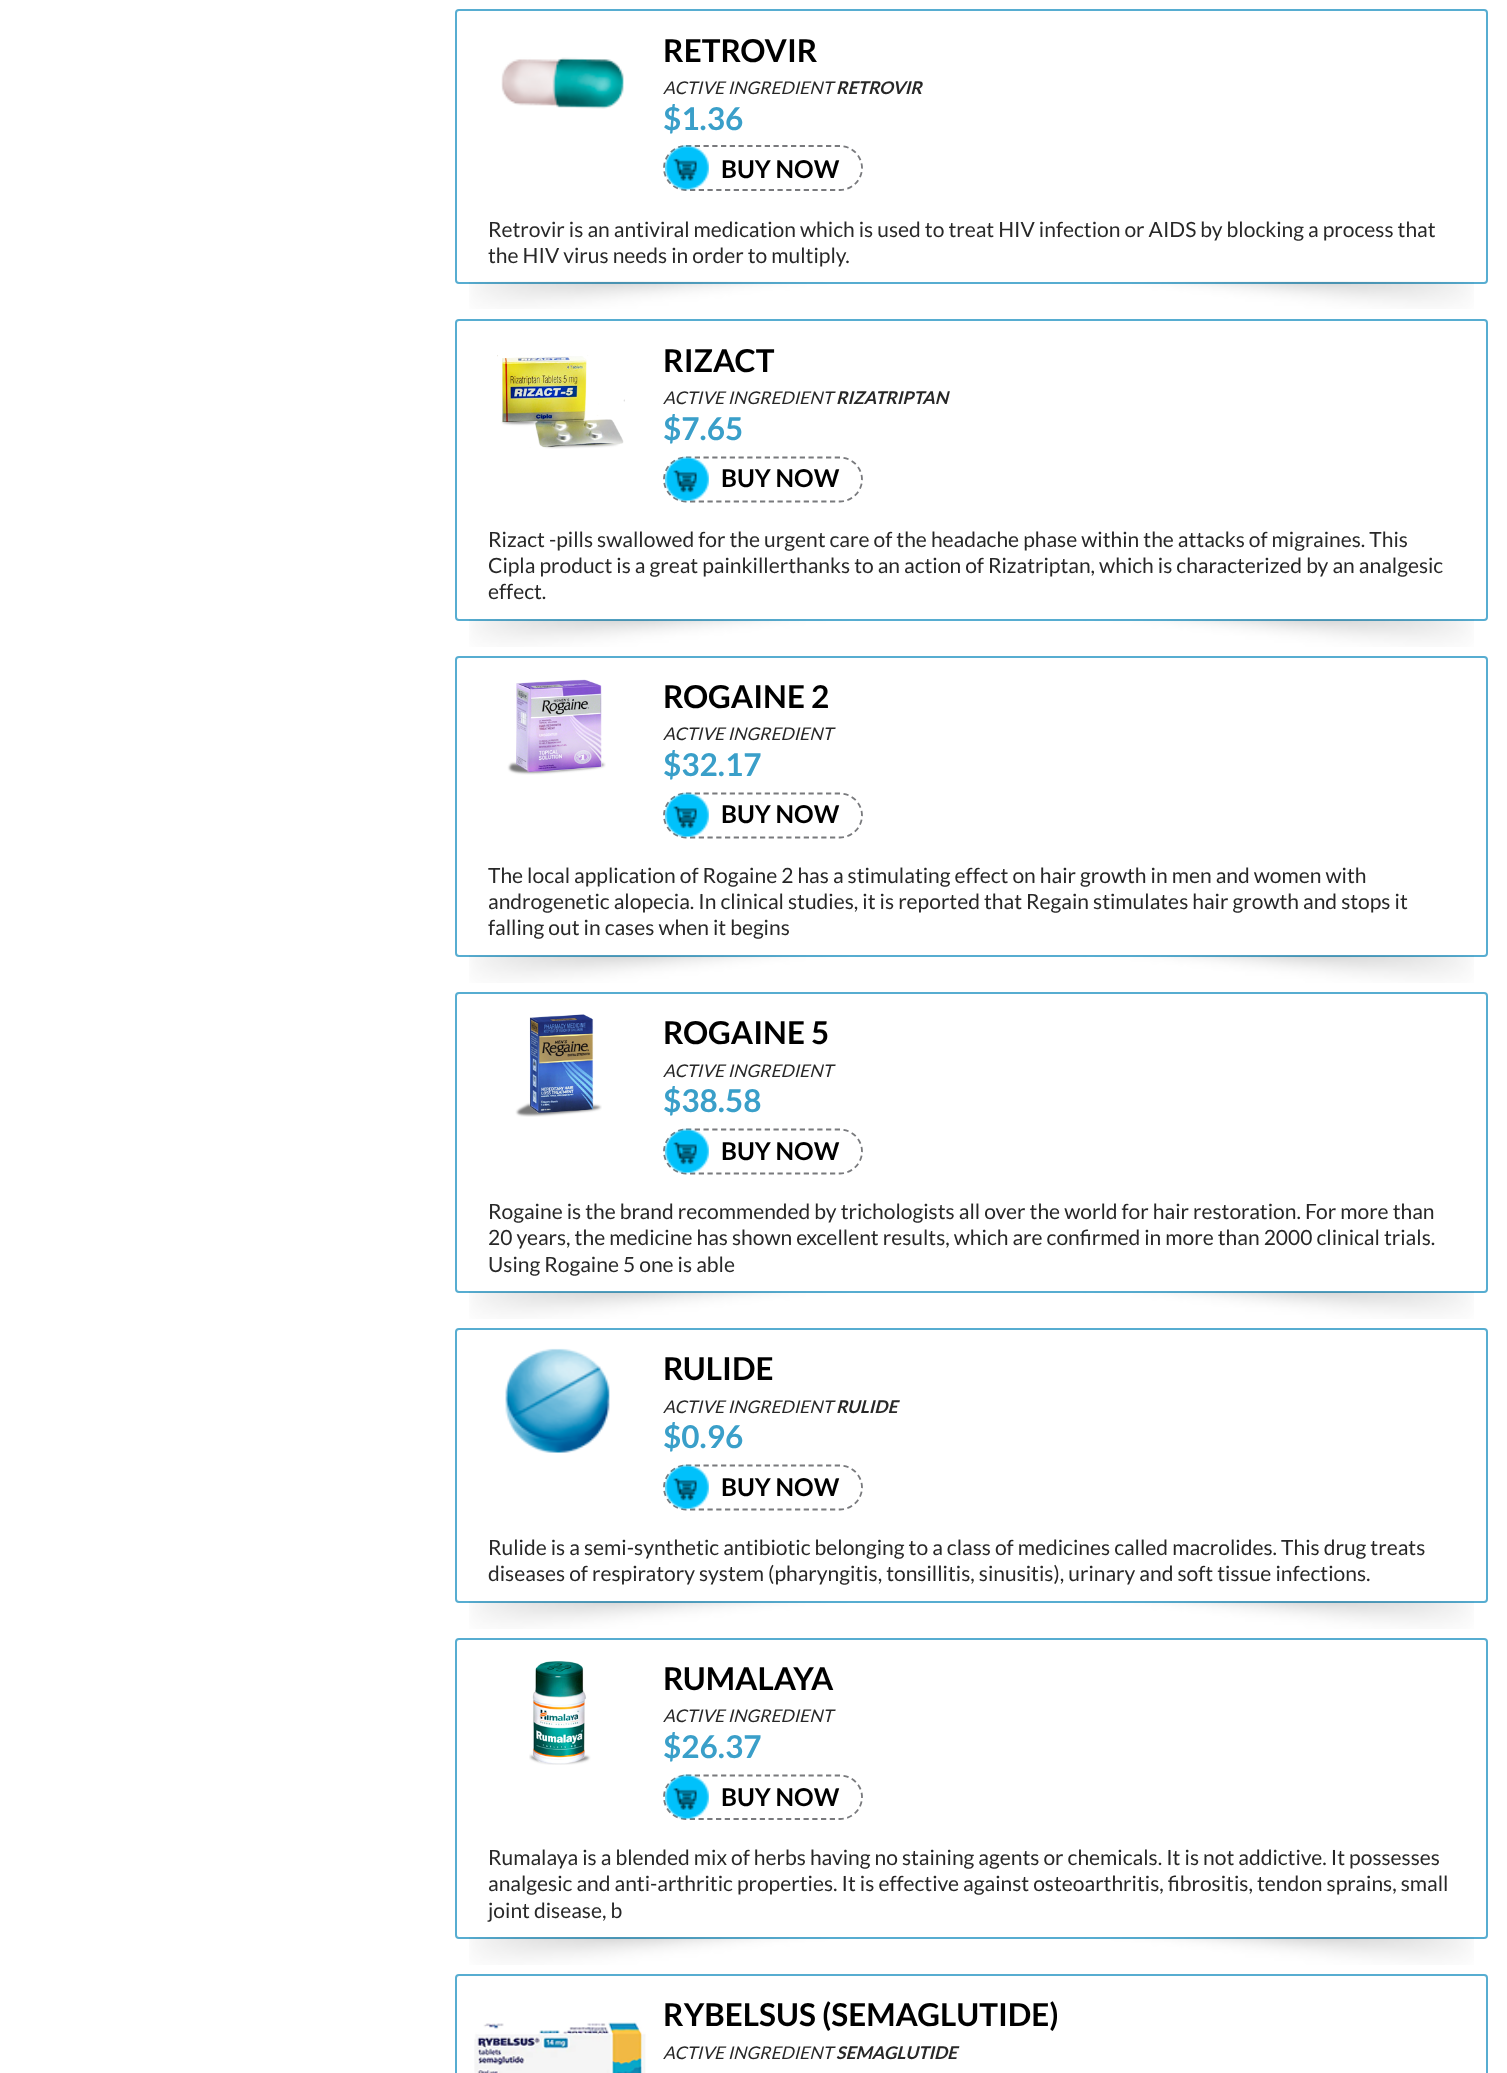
<!DOCTYPE html>
<meta charset="utf-8">
<style>body { margin: 0 } canvas { display: block }</style>
<canvas id="canvas" width="1507" height="2073"></canvas>
<img id="img1" src="images/1.png" hidden>
<img id="img2" src="images/2.png" hidden>
<img id="img3" src="images/3.png" hidden>
<img id="img4" src="images/4.png" hidden>
<img id="img5" src="images/5.png" hidden>
<img id="img6" src="images/6.png" hidden>
<img id="img7" src="images/7.png" hidden>
<img id="img8" src="images/8.png" hidden>
<img id="img9" src="images/9.png" hidden>
<img id="img10" src="images/10.png" hidden>
<img id="img11" src="images/11.png" hidden>
<img id="img12" src="images/12.png" hidden>
<img id="img13" src="images/13.png" hidden>
<script>
window.onload = function () {
    const canvas = document.getElementById('canvas');
    const context = canvas.getContext('2d');
    context.miterLimit = 4;
    context.fontKerning = 'normal';

    context.fillStyle = 'rgb(255, 255, 255)';
    context.fillRect(0, 0, 1507, 2073);
    context.beginPath();
    context.roundRect(456, 10, 1031, 273, 3);
    context.strokeStyle = 'rgb(87, 173, 209)';
    context.lineWidth = 2;
    context.stroke();
    context.drawImage(document.getElementById('img1'), 501, 57, 123, 52);
    context.beginPath();
    context.moveTo(686, 146);
    context.lineTo(840, 146);
    context.bezierCurveTo(852, 146, 862, 156, 862, 168);
    context.bezierCurveTo(862, 180, 852, 190, 840, 190);
    context.lineTo(686, 190);
    context.bezierCurveTo(674, 190, 664, 180, 664, 168);
    context.bezierCurveTo(664, 156, 674, 146, 686, 146);
    context.closePath();
    context.strokeStyle = 'rgb(121, 122, 125)';
    context.lineWidth = 1.8;
    context.setLineDash([5.25, 3.5]);
    context.stroke();
    context.drawImage(document.getElementById('img2'), 665, 145, 44, 46);
    context.drawImage(document.getElementById('img3'), 469, 281, 1005, 28);
    context.beginPath();
    context.roundRect(456, 320, 1031, 300, 3);
    context.strokeStyle = 'rgb(87, 173, 209)';
    context.lineWidth = 2;
    context.setLineDash([]);
    context.stroke();
    context.drawImage(document.getElementById('img4'), 497, 355, 128, 94);
    context.beginPath();
    context.moveTo(686, 457.5);
    context.lineTo(840, 457.5);
    context.bezierCurveTo(852, 457.5, 862, 467.5, 862, 479.5);
    context.bezierCurveTo(862, 491.5, 852, 501.5, 840, 501.5);
    context.lineTo(686, 501.5);
    context.bezierCurveTo(674, 501.5, 664, 491.5, 664, 479.5);
    context.bezierCurveTo(664, 467.5, 674, 457.5, 686, 457.5);
    context.closePath();
    context.strokeStyle = 'rgb(121, 122, 125)';
    context.lineWidth = 1.8;
    context.setLineDash([5.25, 3.5]);
    context.stroke();
    context.drawImage(document.getElementById('img5'), 665, 456, 44, 47);
    context.drawImage(document.getElementById('img6'), 469, 619, 1005, 28);
    context.beginPath();
    context.roundRect(456, 657, 1031, 299, 3);
    context.strokeStyle = 'rgb(87, 173, 209)';
    context.lineWidth = 2;
    context.setLineDash([]);
    context.stroke();
    context.drawImage(document.getElementById('img7'), 507, 679, 99, 96);
    context.beginPath();
    context.moveTo(686, 793.5);
    context.lineTo(840, 793.5);
    context.bezierCurveTo(852, 793.5, 862, 803.5, 862, 815.5);
    context.bezierCurveTo(862, 827.5, 852, 837.5, 840, 837.5);
    context.lineTo(686, 837.5);
    context.bezierCurveTo(674, 837.5, 664, 827.5, 664, 815.5);
    context.bezierCurveTo(664, 803.5, 674, 793.5, 686, 793.5);
    context.closePath();
    context.strokeStyle = 'rgb(121, 122, 125)';
    context.lineWidth = 1.8;
    context.setLineDash([5.25, 3.5]);
    context.stroke();
    context.drawImage(document.getElementById('img5'), 665, 792, 44, 47);
    context.drawImage(document.getElementById('img6'), 469, 955, 1005, 28);
    context.beginPath();
    context.roundRect(456, 993, 1031, 299, 3);
    context.strokeStyle = 'rgb(87, 173, 209)';
    context.lineWidth = 2;
    context.setLineDash([]);
    context.stroke();
    context.drawImage(document.getElementById('img8'), 515, 1014, 87, 103);
    context.beginPath();
    context.moveTo(686, 1129.5);
    context.lineTo(840, 1129.5);
    context.bezierCurveTo(852, 1129.5, 862, 1139.5, 862, 1151.5);
    context.bezierCurveTo(862, 1163.5, 852, 1173.5, 840, 1173.5);
    context.lineTo(686, 1173.5);
    context.bezierCurveTo(674, 1173.5, 664, 1163.5, 664, 1151.5);
    context.bezierCurveTo(664, 1139.5, 674, 1129.5, 686, 1129.5);
    context.closePath();
    context.strokeStyle = 'rgb(121, 122, 125)';
    context.lineWidth = 1.8;
    context.setLineDash([5.25, 3.5]);
    context.stroke();
    context.drawImage(document.getElementById('img5'), 665, 1128, 44, 47);
    context.drawImage(document.getElementById('img6'), 469, 1291, 1005, 28);
    context.beginPath();
    context.roundRect(456, 1329, 1031, 273, 3);
    context.strokeStyle = 'rgb(87, 173, 209)';
    context.lineWidth = 2;
    context.setLineDash([]);
    context.stroke();
    context.drawImage(document.getElementById('img9'), 505, 1348, 105, 105);
    context.beginPath();
    context.moveTo(686, 1465.5);
    context.lineTo(840, 1465.5);
    context.bezierCurveTo(852, 1465.5, 862, 1475.5, 862, 1487.5);
    context.bezierCurveTo(862, 1499.5, 852, 1509.5, 840, 1509.5);
    context.lineTo(686, 1509.5);
    context.bezierCurveTo(674, 1509.5, 664, 1499.5, 664, 1487.5);
    context.bezierCurveTo(664, 1475.5, 674, 1465.5, 686, 1465.5);
    context.closePath();
    context.strokeStyle = 'rgb(121, 122, 125)';
    context.lineWidth = 1.8;
    context.setLineDash([5.25, 3.5]);
    context.stroke();
    context.drawImage(document.getElementById('img5'), 665, 1464, 44, 47);
    context.drawImage(document.getElementById('img10'), 469, 1601, 1005, 28);
    context.beginPath();
    context.roundRect(456, 1639, 1031, 299, 3);
    context.strokeStyle = 'rgb(87, 173, 209)';
    context.lineWidth = 2;
    context.setLineDash([]);
    context.stroke();
    context.drawImage(document.getElementById('img11'), 529, 1661, 62, 104);
    context.beginPath();
    context.moveTo(686, 1775.5);
    context.lineTo(840, 1775.5);
    context.bezierCurveTo(852, 1775.5, 862, 1785, 862, 1797);
    context.bezierCurveTo(862, 1809.5, 852, 1819, 840, 1819);
    context.lineTo(686, 1819);
    context.bezierCurveTo(674, 1819, 664, 1809.5, 664, 1797);
    context.bezierCurveTo(664, 1785, 674, 1775.5, 686, 1775.5);
    context.closePath();
    context.strokeStyle = 'rgb(121, 122, 125)';
    context.lineWidth = 1.8;
    context.setLineDash([5.25, 3.5]);
    context.stroke();
    context.drawImage(document.getElementById('img12'), 665, 1774, 44, 46);
    context.drawImage(document.getElementById('img10'), 469, 1937, 1005, 28);
    context.beginPath();
    context.roundRect(456, 1975, 1031, 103, 3);
    context.strokeStyle = 'rgb(87, 173, 209)';
    context.lineWidth = 2;
    context.setLineDash([]);
    context.stroke();
    context.drawImage(document.getElementById('img13'), 474, 2020, 172, 53);
    context.font = 'bold 31.5px Lato';
    context.fillStyle = 'rgb(0, 0, 0)';
    context.fillText('RETROVIR', 663, 62);
    context.font = 'italic 17.5px Lato';
    context.fillStyle = 'rgb(40, 40, 40)';
    context.fillText('ACTIVE INGREDIENT', 663, 94);
    context.font = 'italic bold 17.5px Lato';
    context.fillText('RETROVIR', 836, 94);
    context.font = 'bold 31.5px Lato';
    context.fillStyle = 'rgb(58, 159, 201)';
    context.fillText('$1.36', 663, 130);
    context.font = 'bold 24.5px Lato';
    context.fillStyle = 'rgb(0, 0, 0)';
    context.fillText('BUY NOW', 721, 178);
    context.font = '21px Lato';
    context.fillStyle = 'rgb(40, 40, 40)';
    context.fillText('Retrovir is an antiviral medication which is used to treat HIV infection or AIDS by blocking a process that', 488, 237);
    context.fillText('the HIV virus needs in order to multiply.', 488, 263);
    context.font = 'bold 31.5px Lato';
    context.fillStyle = 'rgb(0, 0, 0)';
    context.fillText('RIZACT', 663, 372);
    context.font = 'italic 17.5px Lato';
    context.fillStyle = 'rgb(40, 40, 40)';
    context.fillText('ACTIVE INGREDIENT', 663, 404);
    context.font = 'italic bold 17.5px Lato';
    context.fillText('RIZATRIPTAN', 836, 404);
    context.font = 'bold 31.5px Lato';
    context.fillStyle = 'rgb(58, 159, 201)';
    context.fillText('$7.65', 663, 440);
    context.font = 'bold 24.5px Lato';
    context.fillStyle = 'rgb(0, 0, 0)';
    context.fillText('BUY NOW', 721, 487);
    context.font = '21px Lato';
    context.fillStyle = 'rgb(40, 40, 40)';
    context.fillText('Rizact -pills swallowed for the urgent care of the headache phase within the attacks of migraines. This', 488, 547);
    context.fillText('Cipla product is a great painkillerthanks to an action of Rizatriptan, which is characterized by an analgesic', 488, 573);
    context.fillText('effect.', 488, 599);
    context.font = 'bold 31.5px Lato';
    context.fillStyle = 'rgb(0, 0, 0)';
    context.fillText('ROGAINE 2', 663, 708);
    context.font = 'italic 17.5px Lato';
    context.fillStyle = 'rgb(40, 40, 40)';
    context.fillText('ACTIVE INGREDIENT', 663, 740);
    context.font = 'bold 31.5px Lato';
    context.fillStyle = 'rgb(58, 159, 201)';
    context.fillText('$32.17', 663, 776);
    context.font = 'bold 24.5px Lato';
    context.fillStyle = 'rgb(0, 0, 0)';
    context.fillText('BUY NOW', 721, 823);
    context.font = '21px Lato';
    context.fillStyle = 'rgb(40, 40, 40)';
    context.fillText('The local application of Rogaine 2 has a stimulating effect on hair growth in men and women with', 488, 883);
    context.fillText('androgenetic alopecia. In clinical studies, it is reported that Regain stimulates hair growth and stops it', 488, 909);
    context.fillText('falling out in cases when it begins', 488, 935);
    context.font = 'bold 31.5px Lato';
    context.fillStyle = 'rgb(0, 0, 0)';
    context.fillText('ROGAINE 5', 663, 1044);
    context.font = 'italic 17.5px Lato';
    context.fillStyle = 'rgb(40, 40, 40)';
    context.fillText('ACTIVE INGREDIENT', 663, 1077);
    context.font = 'bold 31.5px Lato';
    context.fillStyle = 'rgb(58, 159, 201)';
    context.fillText('$38.58', 663, 1112);
    context.font = 'bold 24.5px Lato';
    context.fillStyle = 'rgb(0, 0, 0)';
    context.fillText('BUY NOW', 721, 1160);
    context.font = '21px Lato';
    context.fillStyle = 'rgb(40, 40, 40)';
    context.fillText('Rogaine is the brand recommended by trichologists all over the world for hair restoration. For more than', 488, 1219);
    context.fillText('20 years, the medicine has shown excellent results, which are confirmed in more than 2000 clinical trials.', 488, 1245);
    context.fillText('Using Rogaine 5 one is able', 488, 1272);
    context.font = 'bold 31.5px Lato';
    context.fillStyle = 'rgb(0, 0, 0)';
    context.fillText('RULIDE', 663, 1380);
    context.font = 'italic 17.5px Lato';
    context.fillStyle = 'rgb(40, 40, 40)';
    context.fillText('ACTIVE INGREDIENT', 663, 1413);
    context.font = 'italic bold 17.5px Lato';
    context.fillText('RULIDE', 836, 1413);
    context.font = 'bold 31.5px Lato';
    context.fillStyle = 'rgb(58, 159, 201)';
    context.fillText('$0.96', 663, 1448);
    context.font = 'bold 24.5px Lato';
    context.fillStyle = 'rgb(0, 0, 0)';
    context.fillText('BUY NOW', 721, 1496);
    context.font = '21px Lato';
    context.fillStyle = 'rgb(40, 40, 40)';
    context.fillText('Rulide is a semi-synthetic antibiotic belonging to a class of medicines called macrolides. This drug treats', 488, 1555);
    context.fillText('diseases of respiratory system (pharyngitis, tonsillitis, sinusitis), urinary and soft tissue infections.', 488, 1581);
    context.font = 'bold 31.5px Lato';
    context.fillStyle = 'rgb(0, 0, 0)';
    context.fillText('RUMALAYA', 663, 1690);
    context.font = 'italic 17.5px Lato';
    context.fillStyle = 'rgb(40, 40, 40)';
    context.fillText('ACTIVE INGREDIENT', 663, 1722);
    context.font = 'bold 31.5px Lato';
    context.fillStyle = 'rgb(58, 159, 201)';
    context.fillText('$26.37', 663, 1758);
    context.font = 'bold 24.5px Lato';
    context.fillStyle = 'rgb(0, 0, 0)';
    context.fillText('BUY NOW', 721, 1806);
    context.font = '21px Lato';
    context.fillStyle = 'rgb(40, 40, 40)';
    context.fillText('Rumalaya is a blended mix of herbs having no staining agents or chemicals. It is not addictive. It possesses', 488, 1865);
    context.fillText('analgesic and anti-arthritic properties. It is effective against osteoarthritis, fibrositis, tendon sprains, small', 488, 1891);
    context.fillText('joint disease, b', 488, 1918);
    context.font = 'bold 31.5px Lato';
    context.fillStyle = 'rgb(0, 0, 0)';
    context.fillText('RYBELSUS (SEMAGLUTIDE)', 663, 2026);
    context.font = 'italic 17.5px Lato';
    context.fillStyle = 'rgb(40, 40, 40)';
    context.fillText('ACTIVE INGREDIENT', 663, 2059);
    context.font = 'italic bold 17.5px Lato';
    context.fillText('SEMAGLUTIDE', 836, 2059);
};
</script>
